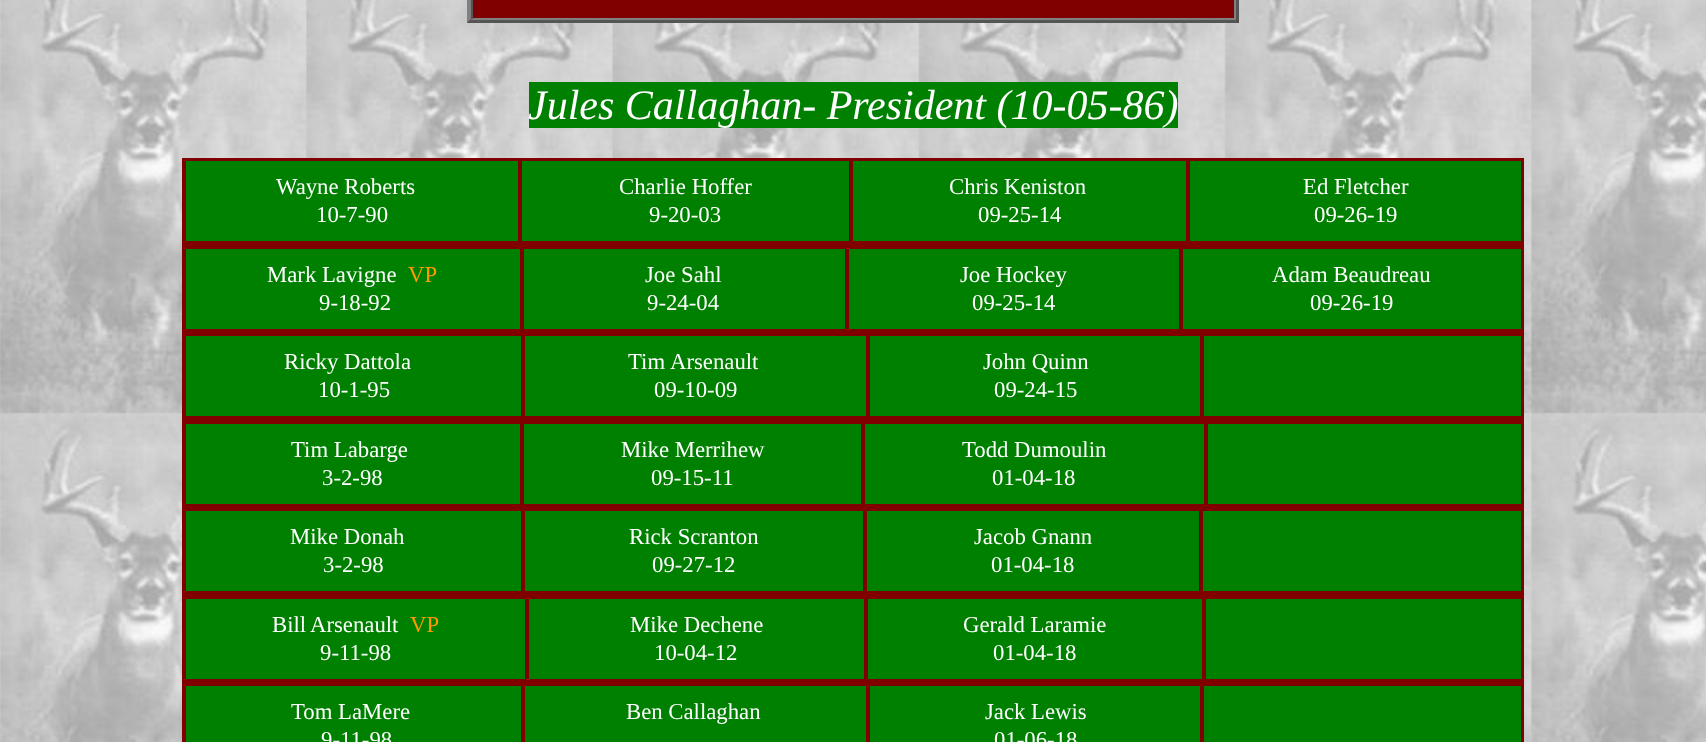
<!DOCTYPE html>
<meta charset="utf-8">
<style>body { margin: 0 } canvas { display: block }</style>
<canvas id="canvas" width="1706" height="742"></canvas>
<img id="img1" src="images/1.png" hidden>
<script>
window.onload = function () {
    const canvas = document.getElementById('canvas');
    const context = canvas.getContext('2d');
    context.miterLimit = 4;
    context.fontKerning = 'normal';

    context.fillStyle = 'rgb(255, 255, 255)';
    context.fillRect(0, 0, 1706, 742);
    context.drawImage(document.getElementById('img1'), 0, 0, 1706, 742);
    context.fillStyle = 'rgb(128, 0, 0)';
    context.fillRect(467, 0, 772, 23);
    context.fillStyle = 'rgb(85, 85, 85)';
    context.beginPath();
    context.moveTo(1239, -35);
    context.lineTo(1239, 23);
    context.lineTo(1236, 19);
    context.lineTo(1236, -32);
    context.closePath();
    context.fill();
    context.beginPath();
    context.moveTo(1239, 23);
    context.lineTo(467, 23);
    context.lineTo(471, 19);
    context.lineTo(1236, 19);
    context.closePath();
    context.fill();
    context.fillStyle = 'rgb(128, 128, 128)';
    context.beginPath();
    context.moveTo(467, 23);
    context.lineTo(467, -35);
    context.lineTo(471, -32);
    context.lineTo(471, 19);
    context.closePath();
    context.fill();
    context.fillRect(1234, 0, 2, 19);
    context.fillRect(471, 18, 765, 2);
    context.fillStyle = 'rgb(85, 85, 85)';
    context.fillRect(471, 0, 2, 19);
    context.fillStyle = 'rgb(0, 128, 0)';
    context.fillRect(529, 82, 649, 46);
    context.fillRect(186, 161, 1335, 80);
    context.strokeStyle = 'rgb(128, 0, 0)';
    context.lineWidth = 2;
    context.strokeRect(183, 159, 1340, 85);
    context.strokeRect(185, 160, 334, 82);
    context.strokeRect(521, 160, 329, 82);
    context.strokeRect(852, 160, 335, 82);
    context.strokeRect(1189, 160, 333, 82);
    context.fillRect(186, 249, 1335, 80);
    context.strokeRect(183, 246, 1340, 86);
    context.strokeRect(185, 248, 336, 82);
    context.strokeRect(523, 248, 323, 82);
    context.strokeRect(848, 248, 332, 82);
    context.strokeRect(1182, 248, 340, 82);
    context.fillRect(186, 336, 1335, 80);
    context.strokeRect(183, 334, 1340, 85);
    context.strokeRect(185, 335, 337, 82);
    context.strokeRect(524, 335, 343, 82);
    context.strokeRect(869, 335, 332, 82);
    context.strokeRect(1203, 335, 319, 82);
    context.fillRect(186, 424, 1335, 80);
    context.strokeRect(183, 421, 1340, 86);
    context.strokeRect(185, 423, 336, 82);
    context.strokeRect(523, 423, 339, 82);
    context.strokeRect(864, 423, 341, 82);
    context.strokeRect(1207, 423, 315, 82);
    context.fillRect(186, 511, 1335, 80);
    context.strokeRect(183, 509, 1340, 85);
    context.strokeRect(185, 510, 337, 82);
    context.strokeRect(524, 510, 340, 82);
    context.strokeRect(866, 510, 334, 82);
    context.strokeRect(1202, 510, 320, 82);
    context.fillRect(186, 599, 1335, 80);
    context.strokeRect(183, 596, 1340, 86);
    context.strokeRect(185, 598, 341, 82);
    context.strokeRect(528, 598, 337, 82);
    context.strokeRect(867, 598, 336, 82);
    context.strokeRect(1205, 598, 317, 82);
    context.fillRect(186, 686, 1335, 56);
    context.strokeRect(183, 684, 1340, 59);
    context.strokeRect(185, 685, 337, 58);
    context.strokeRect(524, 685, 343, 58);
    context.strokeRect(869, 685, 332, 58);
    context.strokeRect(1203, 685, 319, 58);
    context.font = 'italic 42px Liberation Serif';
    context.fillStyle = 'rgb(255, 255, 255)';
    context.fillText('Jules Callaghan- President (10-05-86)', 528, 119);
    context.font = '22.75px Liberation Serif';
    context.fillText('Wayne Roberts', 276, 194);
    context.fillText('10-7-90', 316, 222);
    context.fillText('Charlie Hoffer', 619, 194);
    context.fillText('9-20-03', 649, 222);
    context.fillText('Chris Keniston', 949, 194);
    context.fillText('09-25-14', 978, 222);
    context.fillText('Ed Fletcher', 1303, 194);
    context.fillText('09-26-19', 1314, 222);
    context.fillText('Mark Lavigne', 267, 282);
    context.fillStyle = 'rgb(255, 153, 0)';
    context.fillText('VP', 408, 282);
    context.fillStyle = 'rgb(255, 255, 255)';
    context.fillText('9-18-92', 319, 310);
    context.fillText('Joe Sahl', 645, 282);
    context.fillText('9-24-04', 647, 310);
    context.fillText('Joe Hockey', 960, 282);
    context.fillText('09-25-14', 972, 310);
    context.fillText('Adam Beaudreau', 1272, 282);
    context.fillText('09-26-19', 1310, 310);
    context.fillText('Ricky Dattola', 284, 369);
    context.fillText('10-1-95', 318, 397);
    context.fillText('Tim', 628, 369);
    context.fillText('Arsenault', 670, 369);
    context.fillText('09-10-09', 654, 397);
    context.fillText('John Quinn', 983, 369);
    context.fillText('09-24-15', 994, 397);
    context.fillText('Tim Labarge', 291, 457);
    context.fillText('3-2-98', 322, 485);
    context.fillText('Mike Merrihew', 621, 457);
    context.fillText('09-15-11', 651, 485);
    context.fillText('Todd Dumoulin', 962, 457);
    context.fillText('01-04-18', 992, 485);
    context.fillText('Mike Donah', 290, 544);
    context.fillText('3-2-98', 323, 572);
    context.fillText('Rick Scranton', 629, 544);
    context.fillText('09-27-12', 652, 572);
    context.fillText('Jacob Gnann', 974, 544);
    context.fillText('01-04-18', 991, 572);
    context.fillText('Bill', 272, 632);
    context.fillText('Arsenault', 310, 632);
    context.fillStyle = 'rgb(255, 153, 0)';
    context.fillText('VP', 410, 632);
    context.fillStyle = 'rgb(255, 255, 255)';
    context.fillText('9-11-98', 320, 660);
    context.fillText('Mike Dechene', 630, 632);
    context.fillText('10-04-12', 654, 660);
    context.fillText('Gerald Laramie', 963, 632);
    context.fillText('01-04-18', 993, 660);
    context.fillText('Tom LaMere', 291, 719);
    context.fillText('9-11-98', 321, 747);
    context.fillText('Ben Callaghan', 626, 719);
    context.fillText('Jack Lewis', 985, 719);
    context.fillText('01-06-18', 994, 747);
};
</script>
